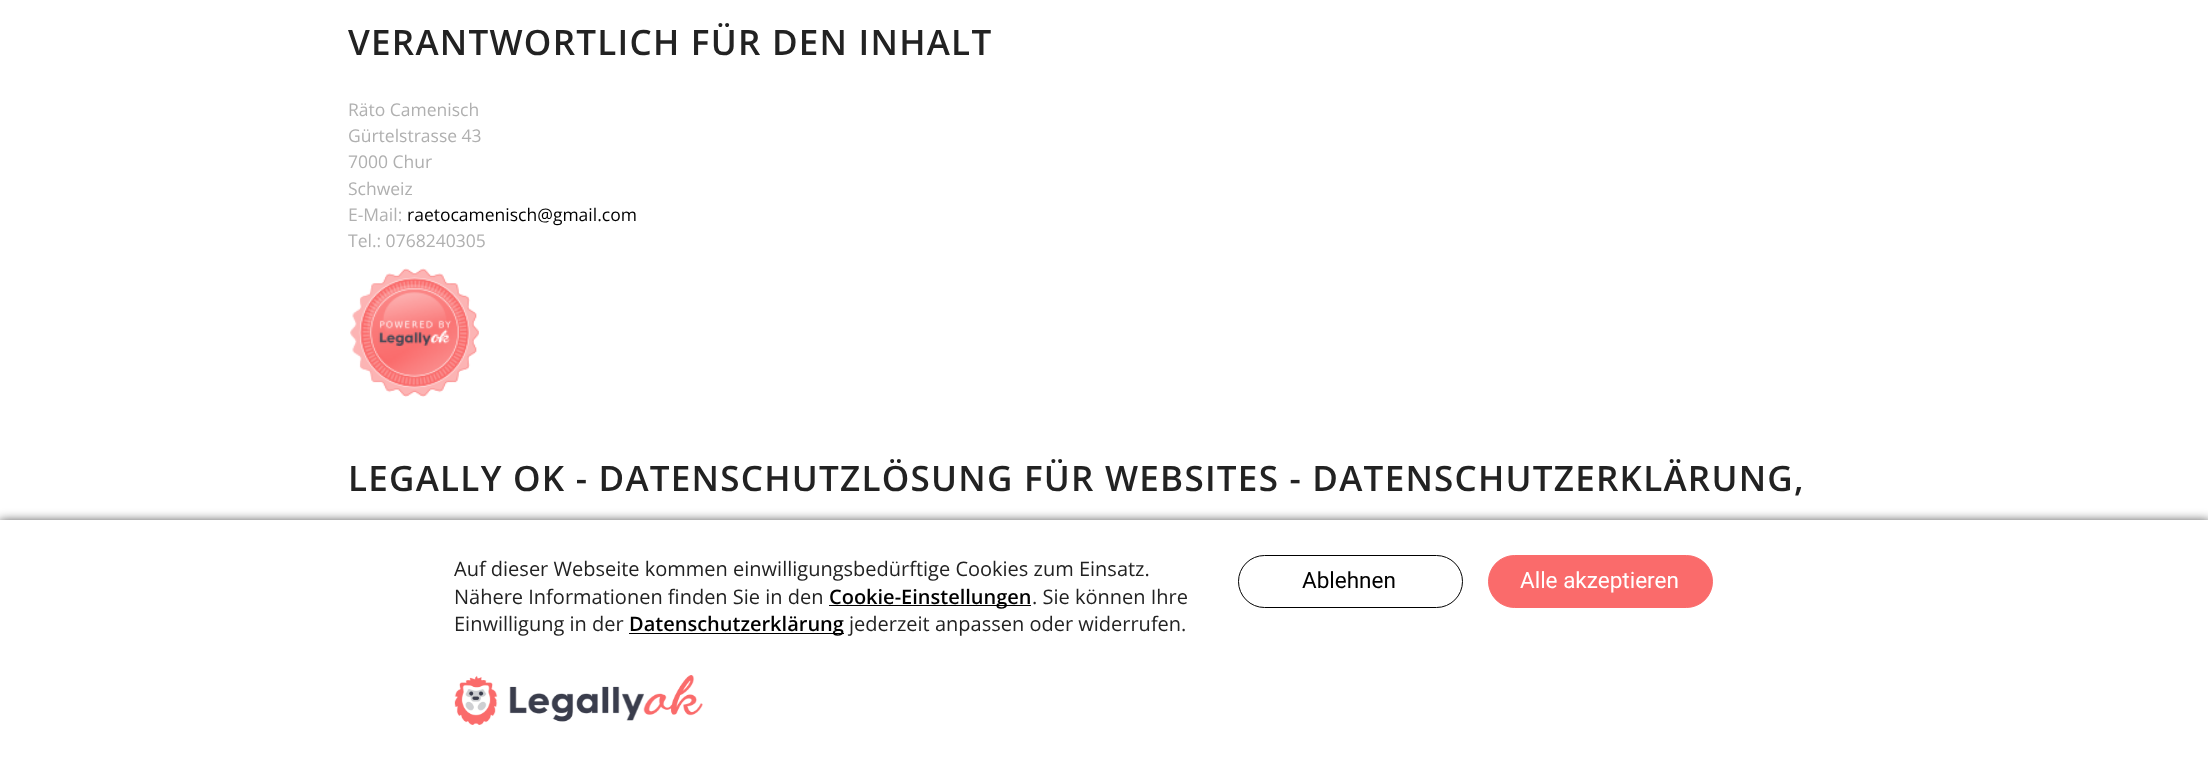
<!DOCTYPE html>
<meta charset="utf-8">
<style>body { margin: 0 } canvas { display: block }</style>
<canvas id="canvas" width="2208" height="770"></canvas>
<img id="img1" src="images/1.png" hidden>
<img id="img2" src="images/2.png" hidden>
<script>
window.onload = function () {
    const canvas = document.getElementById('canvas');
    const context = canvas.getContext('2d');
    context.miterLimit = 4;
    context.fontKerning = 'normal';

    context.fillStyle = 'rgb(255, 255, 255)';
    context.fillRect(0, 0, 2208, 770);
    context.drawImage(document.getElementById('img1'), 350, 268, 129, 129);
    context.fillStyle = 'rgba(0, 0, 0, 0.75)';
    context.filter = 'blur(5.5px)';
    context.beginPath();
    context.rect(-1, 521, 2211, 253);
    context.fill();
    context.filter = 'none';
    context.fillStyle = 'rgb(255, 255, 255)';
    context.fillRect(0, 520, 2208, 250);
    context.fillStyle = 'rgb(0, 0, 0)';
    context.fillRect(829, 605, 202, 1);
    context.fillRect(629, 633, 215, 1);
    context.beginPath();
    context.roundRect(1238.5, 555.5, 224, 52, 26);
    context.strokeStyle = 'rgb(0, 0, 0)';
    context.stroke();
    context.fillStyle = 'rgb(250, 107, 107)';
    context.beginPath();
    context.roundRect(1488.5, 555.5, 224, 52, 26);
    context.fill();
    context.strokeStyle = 'rgb(250, 107, 107)';
    context.stroke();
    context.drawImage(document.getElementById('img2'), 454, 675, 249, 50);
    context.letterSpacing = '1.25px';
    context.font = '600 35px Open Sans';
    context.fillStyle = 'rgb(34, 34, 34)';
    context.fillText('VERANTWORTLICH FÜR DEN INHALT', 348, 55);
    context.letterSpacing = '0px';
    context.font = '17.5px Open Sans';
    context.fillStyle = 'rgb(176, 176, 176)';
    context.fillText('Räto Camenisch', 348, 116);
    context.fillText('Gürtelstrasse 43', 348, 142);
    context.fillText('7000 Chur', 348, 168);
    context.fillText('Schweiz', 348, 195);
    context.fillText('E-Mail:', 348, 221);
    context.fillStyle = 'rgb(0, 0, 0)';
    context.fillText('raetocamenisch@gmail.com', 407, 221);
    context.fillStyle = 'rgb(176, 176, 176)';
    context.fillText('Tel.: 0768240305', 348, 247);
    context.letterSpacing = '1.25px';
    context.font = '600 35px Open Sans';
    context.fillStyle = 'rgb(34, 34, 34)';
    context.fillText('LEGALLY OK - DATENSCHUTZLÖSUNG FÜR WEBSITES - DATENSCHUTZERKLÄRUNG,', 348, 491);
    context.letterSpacing = '0px';
    context.font = '20px Open Sans';
    context.fillText('Auf dieser Webseite kommen einwilligungsbedürftige Cookies zum Einsatz.', 454, 576);
    context.fillText('Nähere Informationen finden Sie in den', 454, 604);
    context.font = '600 20px Open Sans';
    context.fillStyle = 'rgb(0, 0, 0)';
    context.fillText('Cookie-Einstellungen', 829, 604);
    context.font = '20px Open Sans';
    context.fillStyle = 'rgb(34, 34, 34)';
    context.fillText('. Sie können Ihre', 1032, 604);
    context.fillText('Einwilligung in der', 454, 631);
    context.font = '600 20px Open Sans';
    context.fillStyle = 'rgb(0, 0, 0)';
    context.fillText('Datenschutzerklärung', 629, 631);
    context.font = '20px Open Sans';
    context.fillStyle = 'rgb(34, 34, 34)';
    context.fillText('jederzeit anpassen oder widerrufen.', 849, 631);
    context.font = '22.5px Roboto';
    context.fillStyle = 'rgb(0, 0, 0)';
    context.fillText('Ablehnen', 1302, 588);
    context.fillStyle = 'rgb(255, 255, 255)';
    context.fillText('Alle akzeptieren', 1520, 588);
};
</script>
